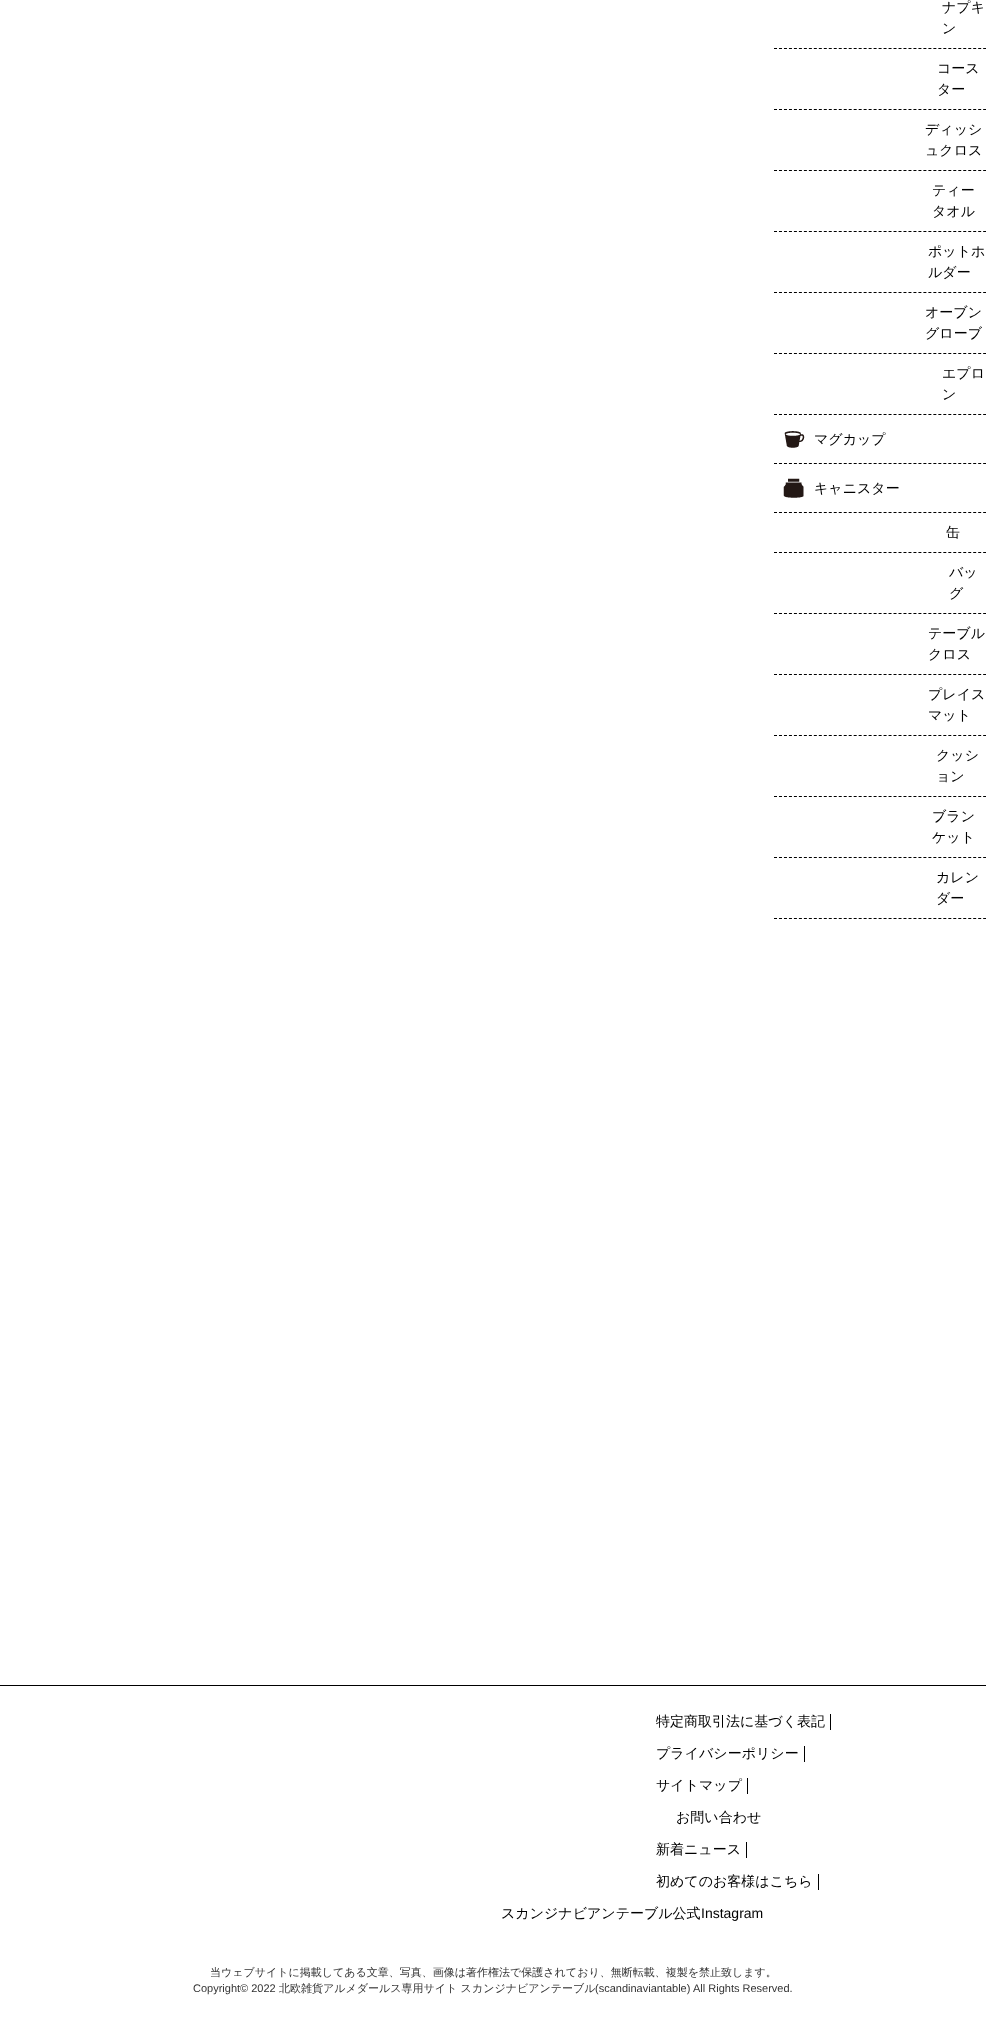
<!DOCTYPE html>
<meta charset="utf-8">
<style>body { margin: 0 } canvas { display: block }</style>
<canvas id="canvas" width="986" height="2017"></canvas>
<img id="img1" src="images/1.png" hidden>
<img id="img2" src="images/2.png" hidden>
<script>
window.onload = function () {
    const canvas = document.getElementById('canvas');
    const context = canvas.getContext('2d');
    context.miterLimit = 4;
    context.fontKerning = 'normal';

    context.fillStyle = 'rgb(255, 255, 255)';
    context.fillRect(0, 0, 986, 2017);
    context.beginPath();
    context.moveTo(774, 48.5);
    context.lineTo(986, 48.5);
    context.strokeStyle = 'rgb(0, 0, 0)';
    context.setLineDash([3, 1.98]);
    context.stroke();
    context.beginPath();
    context.moveTo(774, 109.5);
    context.lineTo(986, 109.5);
    context.stroke();
    context.beginPath();
    context.moveTo(774, 170.5);
    context.lineTo(986, 170.5);
    context.stroke();
    context.beginPath();
    context.moveTo(774, 231.5);
    context.lineTo(986, 231.5);
    context.stroke();
    context.beginPath();
    context.moveTo(774, 292.5);
    context.lineTo(986, 292.5);
    context.stroke();
    context.beginPath();
    context.moveTo(774, 353.5);
    context.lineTo(986, 353.5);
    context.stroke();
    context.beginPath();
    context.moveTo(774, 414.5);
    context.lineTo(986, 414.5);
    context.stroke();
    context.beginPath();
    context.moveTo(774, 463.5);
    context.lineTo(986, 463.5);
    context.stroke();
    context.drawImage(document.getElementById('img1'), 784, 431, 21, 17);
    context.beginPath();
    context.moveTo(774, 512.5);
    context.lineTo(986, 512.5);
    context.stroke();
    context.drawImage(document.getElementById('img2'), 783, 478, 21, 20);
    context.beginPath();
    context.moveTo(774, 552.5);
    context.lineTo(986, 552.5);
    context.stroke();
    context.beginPath();
    context.moveTo(774, 613.5);
    context.lineTo(986, 613.5);
    context.stroke();
    context.beginPath();
    context.moveTo(774, 674.5);
    context.lineTo(986, 674.5);
    context.stroke();
    context.beginPath();
    context.moveTo(774, 735.5);
    context.lineTo(986, 735.5);
    context.stroke();
    context.beginPath();
    context.moveTo(774, 796.5);
    context.lineTo(986, 796.5);
    context.stroke();
    context.beginPath();
    context.moveTo(774, 857.5);
    context.lineTo(986, 857.5);
    context.stroke();
    context.beginPath();
    context.moveTo(774, 918.5);
    context.lineTo(986, 918.5);
    context.stroke();
    context.fillStyle = 'rgb(0, 0, 0)';
    context.fillRect(0, 1685, 986, 1);
    context.fillRect(830, 1714, 1, 16);
    context.fillRect(804, 1746, 1, 16);
    context.fillRect(747, 1778, 1, 16);
    context.fillRect(746, 1842, 1, 16);
    context.fillRect(818, 1874, 1, 16);
    context.font = '500 14px WenQuanYi Zen Hei';
    context.fillText('ナプキ', 942, 12);
    context.fillText('ン', 942, 33);
    context.fillText('コース', 937, 73);
    context.fillText('ター', 937, 94);
    context.fillText('ディッシ', 925, 134);
    context.fillText('ュクロス', 925, 155);
    context.fillText('ティー', 932, 195);
    context.fillText('タオル', 932, 216);
    context.fillText('ポットホ', 928, 256);
    context.fillText('ルダー', 928, 277);
    context.fillText('オーブン', 925, 317);
    context.fillText('グローブ', 925, 338);
    context.fillText('エプロ', 942, 378);
    context.fillText('ン', 942, 399);
    context.fillText('マグカップ', 814, 444);
    context.fillText('キャニスター', 814, 493);
    context.fillText('缶', 946, 537);
    context.fillText('バッ', 949, 577);
    context.fillText('グ', 949, 598);
    context.fillText('テーブル', 928, 638);
    context.fillText('クロス', 928, 659);
    context.fillText('プレイス', 928, 699);
    context.fillText('マット', 928, 720);
    context.fillText('クッシ', 936, 760);
    context.fillText('ョン', 936, 781);
    context.fillText('ブラン', 932, 821);
    context.fillText('ケット', 932, 842);
    context.fillText('カレン', 936, 882);
    context.fillText('ダー', 936, 903);
    context.fillText('特定商取引法に基づく表記', 656, 1726);
    context.fillText('プライバシーポリシー', 656, 1758);
    context.fillText('サイトマップ', 656, 1790);
    context.fillText('お問い合わせ', 676, 1822);
    context.fillText('新着ニュース', 656, 1854);
    context.fillText('初めてのお客様はこちら', 656, 1886);
    context.fillText('スカンジナビアンテーブル公式', 501, 1918);
    context.font = '14px Liberation Sans';
    context.fillText('Instagram', 701, 1918);
    context.font = '500 11px WenQuanYi Zen Hei';
    context.fillStyle = 'rgb(51, 51, 51)';
    context.fillText('当ウェブサイトに掲載してある文章、写真、画像は著作権法で保護されており、無断転載、複製を禁止致します。', 210, 1976);
    context.font = '11px Liberation Sans';
    context.fillText('Copyright© 2022', 193, 1992);
    context.font = '500 11px WenQuanYi Zen Hei';
    context.fillText('北欧雑貨アルメダールス専用サイト スカンジナビアンテーブル', 279, 1992);
    context.font = '11px Liberation Sans';
    context.fillText('(scandinaviantable)', 595, 1992);
    context.fillText('All Rights Reserved.', 693, 1992);
};
</script>
